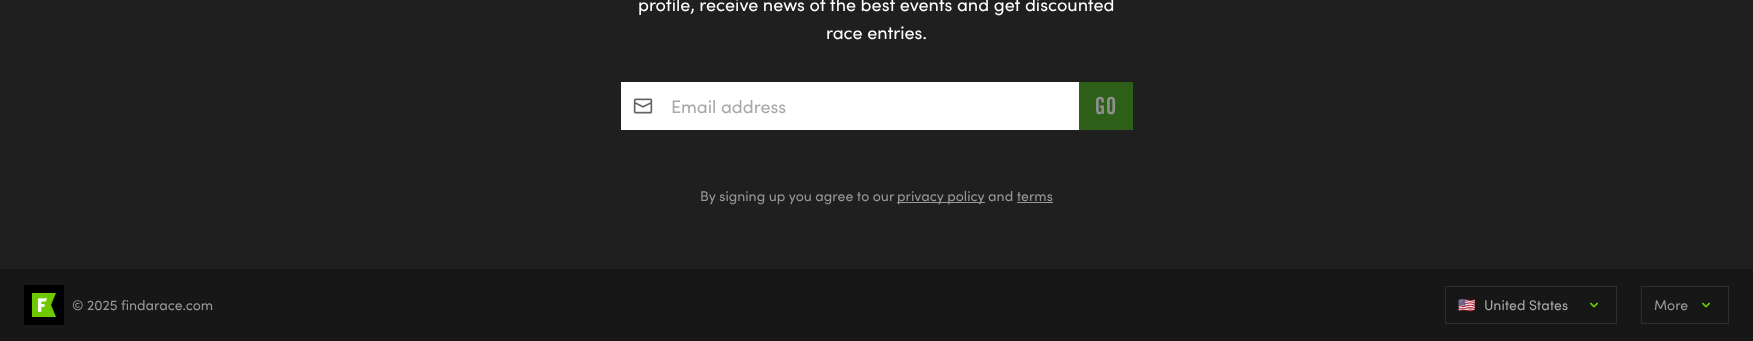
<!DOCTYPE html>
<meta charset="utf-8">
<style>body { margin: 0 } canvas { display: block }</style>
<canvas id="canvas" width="1753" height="341"></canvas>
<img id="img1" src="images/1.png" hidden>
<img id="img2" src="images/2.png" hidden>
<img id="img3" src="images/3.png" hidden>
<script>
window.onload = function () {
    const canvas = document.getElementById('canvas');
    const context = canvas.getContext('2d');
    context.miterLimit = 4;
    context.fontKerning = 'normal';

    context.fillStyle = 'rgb(30, 31, 30)';
    context.fillRect(0, 0, 1753, 341);
    context.fillStyle = 'rgb(255, 255, 255)';
    context.fillRect(621, 82, 458, 48);
    context.drawImage(document.getElementById('img1'), 633, 98, 20, 16);
    context.fillStyle = 'rgb(45, 95, 25)';
    context.fillRect(1079, 82, 54, 48);
    context.fillStyle = 'rgb(150, 152, 149)';
    context.fillRect(897, 202, 88, 1);
    context.fillRect(1017, 202, 36, 1);
    context.fillStyle = 'rgb(23, 23, 23)';
    context.fillRect(0, 269, 1753, 72);
    context.drawImage(document.getElementById('img2'), 24, 285, 40, 40);
    context.strokeStyle = 'rgb(45, 46, 45)';
    context.strokeRect(1445.5, 286.5, 171, 37);
    context.drawImage(document.getElementById('img3'), 1590, 302, 8, 6);
    context.strokeRect(1641.5, 286.5, 87, 37);
    context.drawImage(document.getElementById('img3'), 1702, 302, 8, 6);
    context.font = '18px Sofia';
    context.fillStyle = 'rgb(255, 255, 255)';
    context.fillText('profile, receive news of the best events and get discounted', 638, 11);
    context.fillText('race entries.', 826, 39);
    context.fillStyle = 'rgb(167, 169, 165)';
    context.fillText('Email address', 671, 113);
    context.letterSpacing = '1px';
    context.font = '24px "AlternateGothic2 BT"';
    context.fillStyle = 'rgb(143, 143, 143)';
    context.fillText('GO', 1095, 114);
    context.letterSpacing = '0px';
    context.font = '14px Sofia';
    context.fillStyle = 'rgb(150, 152, 149)';
    context.fillText('By signing up you agree to our', 700, 201);
    context.fillText('privacy policy and terms', 897, 201);
    context.fillText('© 2025 findarace.com', 72, 310);
    context.font = '14px Noto Color Emoji';
    context.fillStyle = 'rgb(167, 169, 165)';
    context.fillText('🇺🇸', 1458, 310);
    context.font = '14px Sofia';
    context.fillText('United States', 1484, 310);
    context.fillStyle = 'rgb(150, 152, 149)';
    context.fillText('More', 1654, 310);
};
</script>
